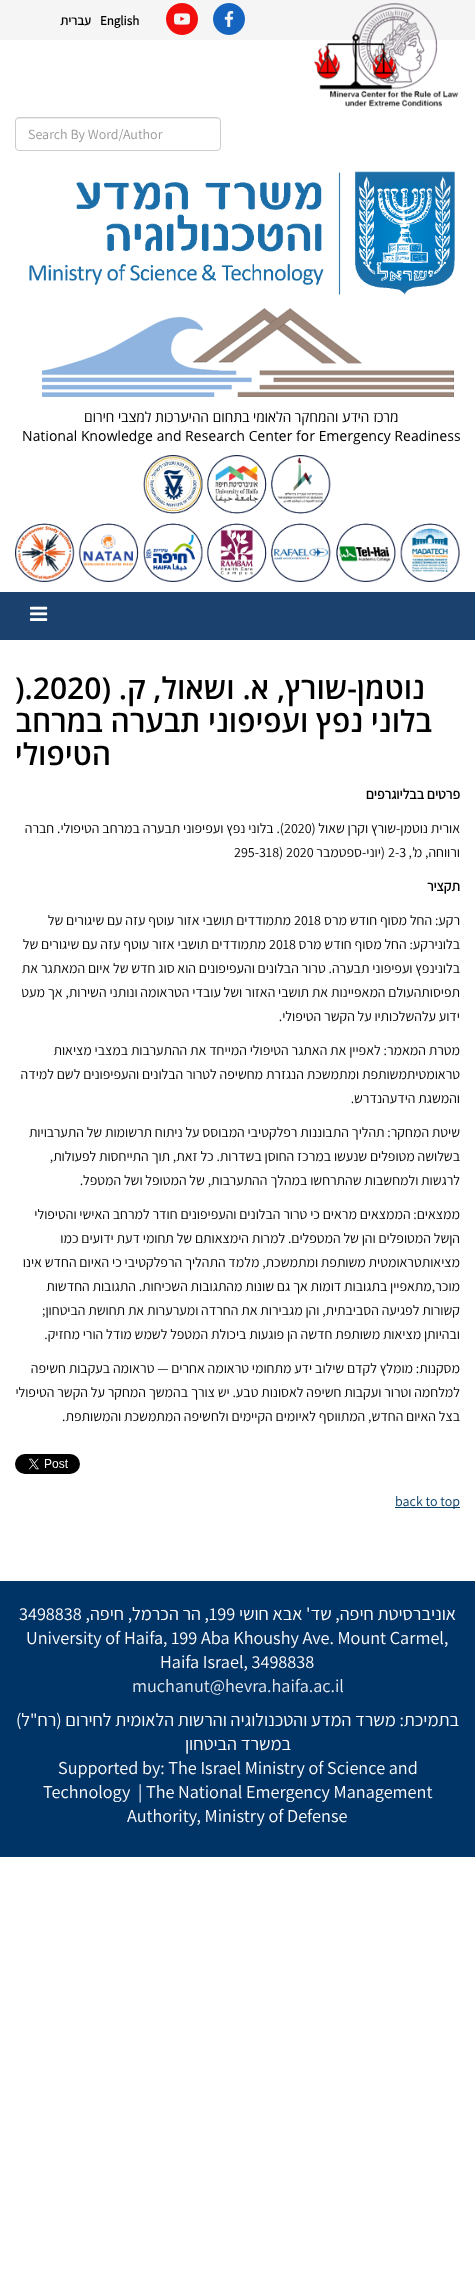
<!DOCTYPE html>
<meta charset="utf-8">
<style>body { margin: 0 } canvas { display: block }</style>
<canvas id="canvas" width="475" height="2284"></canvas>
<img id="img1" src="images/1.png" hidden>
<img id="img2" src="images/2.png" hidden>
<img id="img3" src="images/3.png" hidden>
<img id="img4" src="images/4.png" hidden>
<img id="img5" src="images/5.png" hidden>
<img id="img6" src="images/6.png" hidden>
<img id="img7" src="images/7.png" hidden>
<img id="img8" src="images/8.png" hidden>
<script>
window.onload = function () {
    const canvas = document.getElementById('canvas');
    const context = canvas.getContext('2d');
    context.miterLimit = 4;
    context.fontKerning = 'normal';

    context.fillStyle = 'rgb(255, 255, 255)';
    context.fillRect(0, 0, 475, 2284);
    context.fillStyle = 'rgb(245, 245, 245)';
    context.fillRect(0, 0, 475, 40);
    context.drawImage(document.getElementById('img1'), 313, 3, 146, 104);
    context.drawImage(document.getElementById('img2'), 213, 3, 32, 32);
    context.drawImage(document.getElementById('img3'), 166, 3, 32, 32);
    context.fillStyle = 'rgb(236, 236, 236)';
    context.beginPath();
    context.moveTo(19, 119);
    context.lineTo(217, 119);
    context.bezierCurveTo(219, 119, 220, 120, 220, 122);
    context.bezierCurveTo(220, 120, 219, 118, 217, 118);
    context.lineTo(19, 118);
    context.bezierCurveTo(17, 118, 16, 120, 16, 122);
    context.bezierCurveTo(16, 120, 17, 119, 19, 119);
    context.closePath();
    context.fill();
    context.beginPath();
    context.roundRect(15.5, 117.5, 205, 33, 3.5);
    context.strokeStyle = 'rgb(204, 204, 204)';
    context.stroke();
    context.drawImage(document.getElementById('img4'), 29, 171, 426, 124);
    context.drawImage(document.getElementById('img5'), 23, 308, 437, 137);
    context.drawImage(document.getElementById('img6'), 15, 455, 445, 127);
    context.fillStyle = 'rgb(27, 66, 111)';
    context.fillRect(0, 592, 475, 48);
    context.drawImage(document.getElementById('img7'), 30, 606, 18, 15);
    context.drawImage(document.getElementById('img8'), 15, 1454, 65, 20);
    context.fillStyle = 'rgb(5, 60, 101)';
    context.fillRect(395, 1507, 65, 1);
    context.fillStyle = 'rgb(0, 51, 102)';
    context.fillRect(0, 1581, 475, 276);
    context.font = 'bold 13px Assistant';
    context.fillStyle = 'rgb(0, 0, 0)';
    context.fillText('English', 100, 25);
    context.direction = 'rtl';
    context.fillText('עברית', 91, 25);
    context.direction = 'ltr';
    context.font = '200 14px Assistant';
    context.fillStyle = 'rgb(153, 153, 153)';
    context.fillText('Search By Word/Author', 28, 139);
    context.direction = 'rtl';
    context.font = '600 30px Open Sans';
    context.fillStyle = 'rgb(0, 0, 0)';
    context.fillText('נוטמן-שורץ, א. ושאול, ק. (', 425, 699);
    context.direction = 'ltr';
    context.fillText(').2020', 15, 699);
    context.direction = 'rtl';
    context.fillText('בלוני נפץ ועפיפוני תבערה במרחב', 432, 732);
    context.fillText('הטיפולי', 111, 765);
    context.font = 'bold 14px Assistant';
    context.fillText('פרטים בבליוגרפים', 460, 799);
    context.font = '200 14px Assistant';
    context.fillText('אורית נוטמן-שורץ וקרן שאול (', 460, 833);
    context.direction = 'ltr';
    context.fillText('2020', 284, 833);
    context.direction = 'rtl';
    context.fillText('). בלוני נפץ ועפיפוני תבערה במרחב הטיפולי. חברה', 284, 833);
    context.fillText('ורווחה, מ\',', 460, 857);
    context.direction = 'ltr';
    context.fillText('2-3', 388, 857);
    context.direction = 'rtl';
    context.fillText('(יוני-ספטמבר', 385, 857);
    context.direction = 'ltr';
    context.fillText('295-318) 2020', 234, 857);
    context.direction = 'rtl';
    context.font = 'bold 14px Assistant';
    context.fillText('תקציר', 460, 891);
    context.font = '200 14px Assistant';
    context.fillText('רקע: החל מסוף חודש מרס', 460, 925);
    context.direction = 'ltr';
    context.fillText('2018', 294, 925);
    context.direction = 'rtl';
    context.fillText('מתמודדים תושבי אזור עוטף עזה עם שיגורים של', 291, 925);
    context.fillText('בלונירקע: החל מסוף חודש מרס', 460, 949);
    context.direction = 'ltr';
    context.fillText('2018', 269, 949);
    context.direction = 'rtl';
    context.fillText('מתמודדים תושבי אזור עוטף עזה עם שיגורים של', 266, 949);
    context.fillText('בלונינפץ ועפיפוני תבערה. טרור הבלונים והעפיפונים הוא סוג חדש של איום המאתגר את', 460, 973);
    context.fillText('תפיסותהעולם המאפיינות את תושבי האזור ושל עובדי הטראומה ונותני השירות, אך מעט', 460, 997);
    context.fillText('ידוע עלהשלכותיו על הקשר הטיפולי.', 460, 1021);
    context.fillText('מטרת המאמר: לאפיין את האתגר הטיפולי המייחד את ההתערבות במצבי מציאות', 460, 1055);
    context.fillText('טראומטיתמשותפת ומתמשכת הנגזרת מחשיפה לטרור הבלונים והעפיפונים לשם למידה', 460, 1079);
    context.fillText('והמשגת הידעהנדרש.', 460, 1103);
    context.fillText('שיטת המחקר: תהליך התבוננות רפלקטיבי המבוסס על ניתוח תרשומות של התערבויות', 460, 1137);
    context.fillText('בשלושה מטופלים שנעשו במרכז החוסן בשדרות. כל זאת, תוך התייחסות לפעולות,', 460, 1161);
    context.fillText('לרגשות ולמחשבות שהתרחשו במהלך ההתערבות, של המטופל ושל המטפל.', 460, 1185);
    context.fillText('ממצאים: הממצאים מראים כי טרור הבלונים והעפיפונים חודר למרחב האישי והטיפולי', 460, 1219);
    context.fillText('הןשל המטופלים והן של המטפלים. למרות הימצאותם של תחומי דעת ידועים כמו', 460, 1243);
    context.fillText('מציאותטראומטית משותפת ומתמשכת, מלמד התהליך הרפלקטיבי כי האיום החדש אינו', 460, 1267);
    context.fillText('מוכר,מתאפיין בתגובות דומות אך גם שונות מהתגובות השכיחות. התגובות החדשות', 460, 1291);
    context.fillText('קשורות לפגיעה הסביבתית, והן מגבירות את החרדה ומערערות את תחושת הביטחון;', 460, 1315);
    context.fillText('ובהיותן מציאות משותפת חדשה הן פוגעות ביכולת המטפל לשמש מודל הורי מחזיק.', 460, 1339);
    context.fillText('מסקנות: מומלץ לקדם שילוב ידע מתחומי טראומה אחרים — טראומה בעקבות חשיפה', 460, 1373);
    context.fillText('למלחמה וטרור ועקבות חשיפה לאסונות טבע. יש צורך בהמשך המחקר על הקשר הטיפולי', 460, 1397);
    context.fillText('בצל האיום החדש, המתווסף לאיומים הקיימים ולחשיפה המתמשכת והמשותפת.', 460, 1421);
    context.direction = 'ltr';
    context.fillStyle = 'rgb(5, 60, 101)';
    context.fillText('back to top', 395, 1506);
    context.direction = 'rtl';
    context.font = '200 18.2px Assistant';
    context.fillStyle = 'rgb(255, 255, 255)';
    context.fillText('אוניברסיטת חיפה, שד\' אבא חושי', 456, 1620);
    context.direction = 'ltr';
    context.fillText('199', 209, 1620);
    context.direction = 'rtl';
    context.fillText(', הר הכרמל, חיפה,', 209, 1620);
    context.direction = 'ltr';
    context.fillText('3498838', 19, 1620);
    context.fillText('University of Haifa, 199 Aba Khoushy Ave. Mount Carmel,', 26, 1644);
    context.fillText('Haifa Israel, 3498838', 160, 1668);
    context.fillStyle = 'rgb(230, 235, 240)';
    context.fillText('muchanut@hevra.haifa.ac.il', 132, 1692);
    context.direction = 'rtl';
    context.fillStyle = 'rgb(255, 255, 255)';
    context.fillText('בתמיכת: משרד המדע והטכנולוגיה והרשות הלאומית לחירום (רח"ל)', 459, 1726);
    context.fillText('במשרד הביטחון', 291, 1750);
    context.direction = 'ltr';
    context.fillText('Supported by: The Israel Ministry of Science and', 58, 1774);
    context.fillText('| The National Emergency Management', 138, 1798);
    context.fillText('Technology', 43, 1798);
    context.fillText('Authority, Ministry of Defense', 127, 1822);
};
</script>
